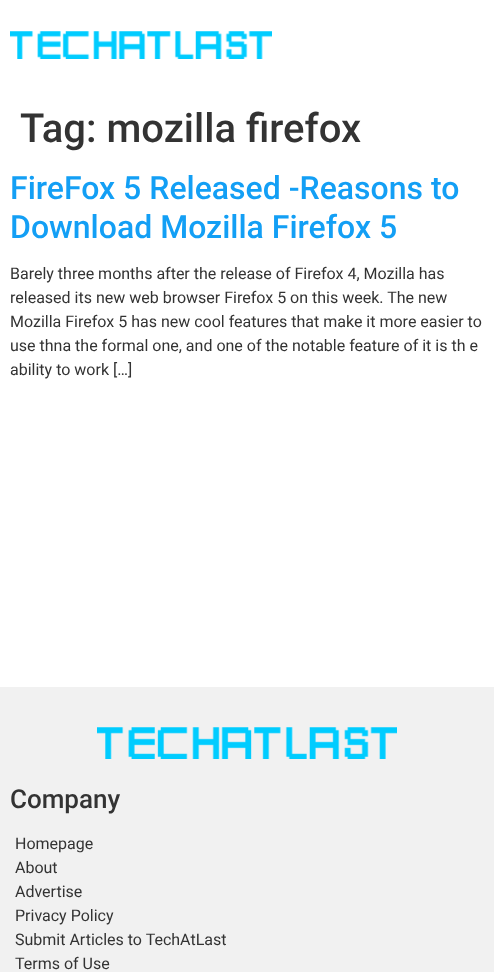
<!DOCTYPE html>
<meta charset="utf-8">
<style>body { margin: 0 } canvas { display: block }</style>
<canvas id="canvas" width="494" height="972"></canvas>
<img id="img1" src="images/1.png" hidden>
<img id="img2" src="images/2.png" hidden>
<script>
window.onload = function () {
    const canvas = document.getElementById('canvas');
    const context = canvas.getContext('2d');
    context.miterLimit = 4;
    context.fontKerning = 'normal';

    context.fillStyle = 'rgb(255, 255, 255)';
    context.fillRect(0, 0, 494, 972);
    context.drawImage(document.getElementById('img1'), 10, 31, 262, 28);
    context.fillStyle = 'rgb(241, 241, 241)';
    context.fillRect(0, 687, 494, 285);
    context.drawImage(document.getElementById('img2'), 97, 727, 300, 32);
    context.font = '500 40px Roboto';
    context.fillStyle = 'rgb(51, 51, 51)';
    context.fillText('Tag: mozilla firefox', 20, 142);
    context.font = '500 32px Roboto';
    context.fillStyle = 'rgb(19, 159, 245)';
    context.fillText('FireFox 5 Released -Reasons to', 10, 199);
    context.fillText('Download Mozilla Firefox 5', 10, 238);
    context.font = '16px Roboto';
    context.fillStyle = 'rgb(51, 51, 51)';
    context.fillText('Barely three months after the release of Firefox 4, Mozilla has', 10, 279);
    context.fillText('released its new web browser Firefox 5 on this week. The new', 10, 303);
    context.fillText('Mozilla Firefox 5 has new cool features that make it more easier to', 10, 327);
    context.fillText('use thna the formal one, and one of the notable feature of it is th e', 10, 351);
    context.fillText('ability to work […]', 10, 375);
    context.font = '500 26px Roboto';
    context.fillText('Company', 10, 808);
    context.font = '16px Roboto';
    context.fillText('Homepage', 15, 849);
    context.fillText('About', 15, 873);
    context.fillText('Advertise', 15, 897);
    context.fillText('Privacy Policy', 15, 921);
    context.fillText('Submit Articles to TechAtLast', 15, 945);
    context.fillText('Terms of Use', 15, 969);
};
</script>
